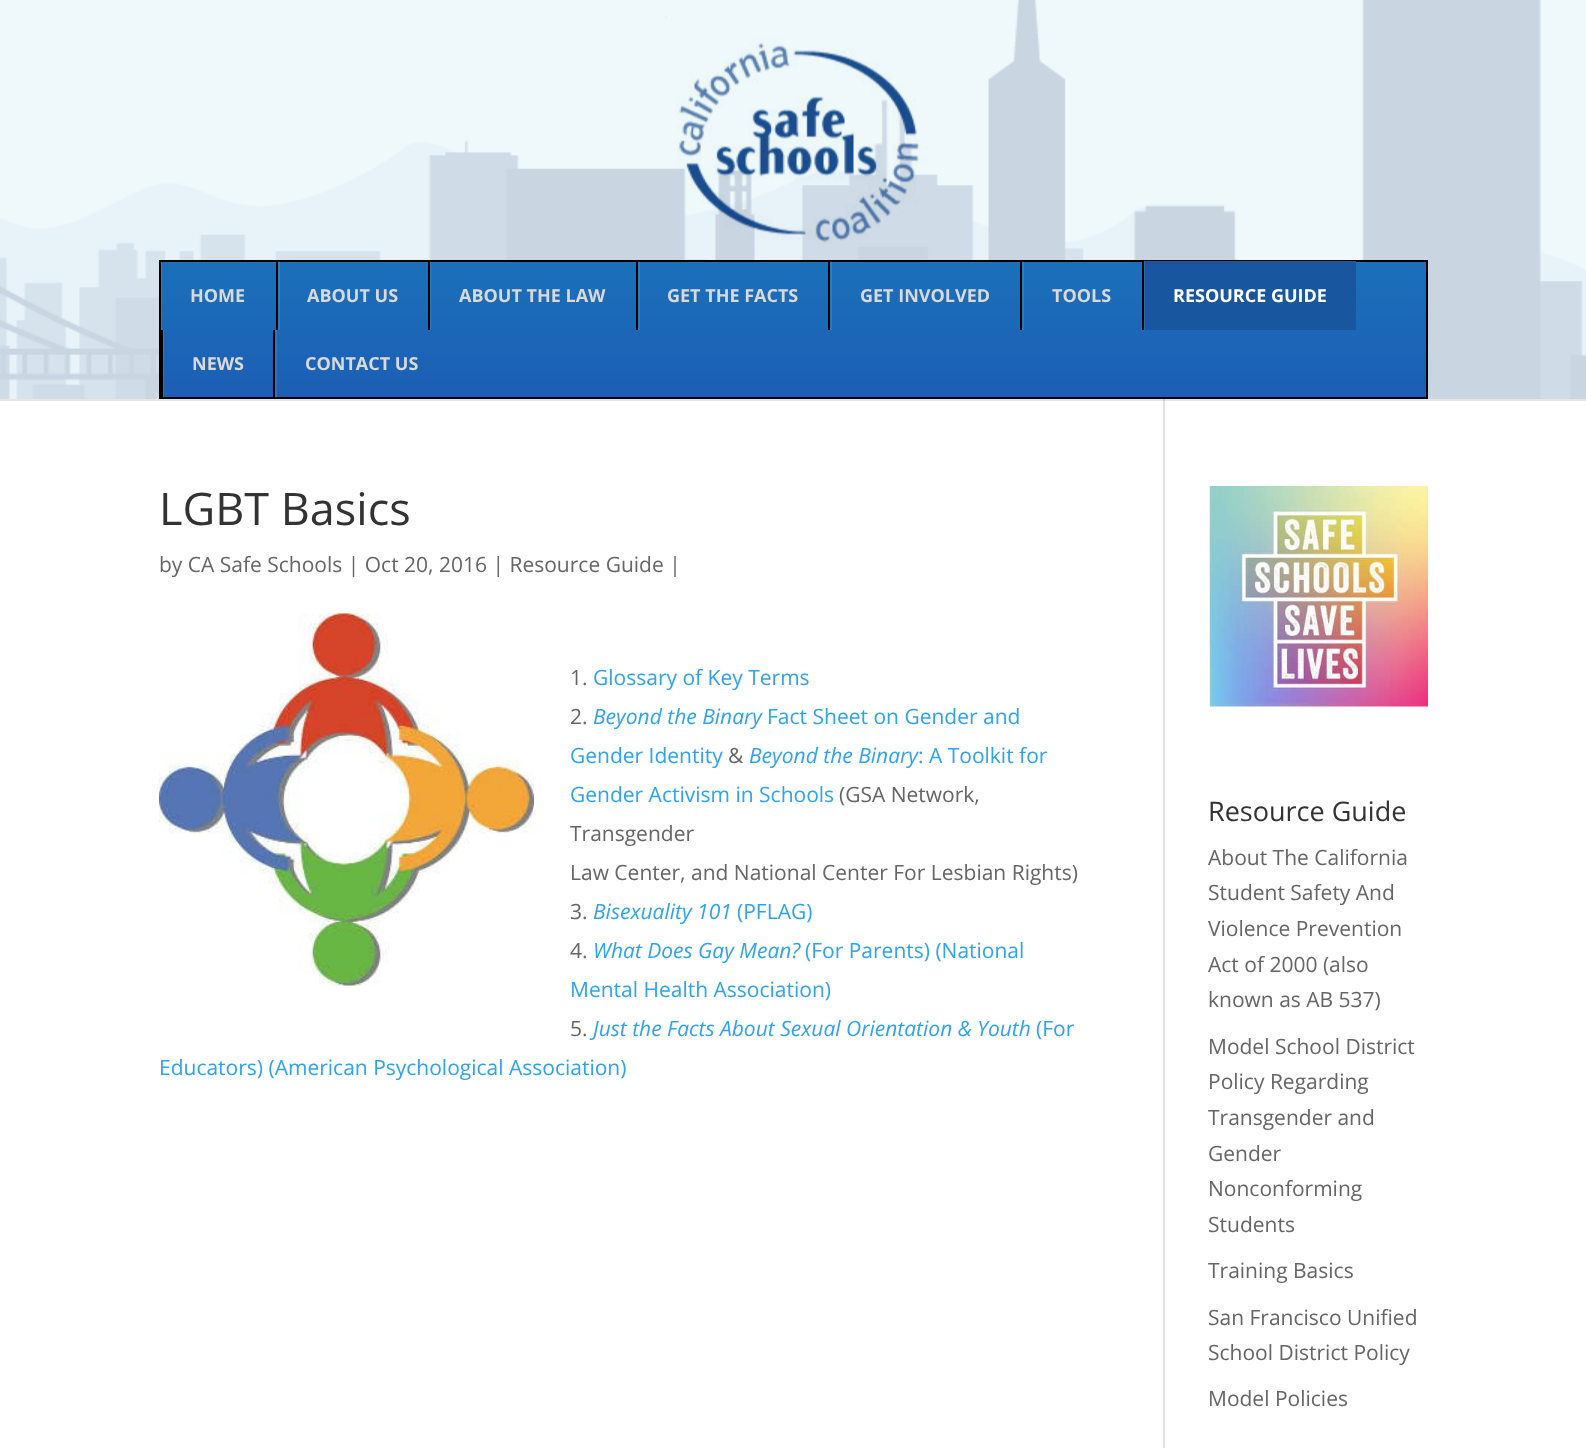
<!DOCTYPE html>
<meta charset="utf-8">
<style>body { margin: 0 } canvas { display: block }</style>
<canvas id="canvas" width="1586" height="1448"></canvas>
<img id="img1" src="images/1.png" hidden>
<img id="img2" src="images/2.png" hidden>
<img id="img3" src="images/3.png" hidden>
<img id="img4" src="images/4.png" hidden>
<script>
window.onload = function () {
    const canvas = document.getElementById('canvas');
    const context = canvas.getContext('2d');
    context.miterLimit = 4;
    context.fontKerning = 'normal';
    let gradient;

    context.fillStyle = 'rgb(255, 255, 255)';
    context.fillRect(0, 0, 1586, 1448);
    context.fillStyle = 'rgb(230, 230, 230)';
    context.fillRect(0, 399, 1586, 2);
    context.drawImage(document.getElementById('img1'), 0, 0, 1586, 399);
    context.drawImage(document.getElementById('img2'), 665, 15, 263, 228);
    gradient = context.createLinearGradient(794, 261, 794, 398);
    gradient.addColorStop(0, 'rgb(27, 112, 186)');
    gradient.addColorStop(1, 'rgb(28, 94, 181)');
    context.fillStyle = gradient;
    context.fillRect(161, 262, 1265, 135);
    context.save();
    context.beginPath();
    context.rect(161, 261, 1266, 137);
    context.clip();
    context.fillStyle = 'rgba(255, 255, 255, 0.1)';
    context.beginPath();
    context.moveTo(12, 112);
    context.lineTo(1575, 112);
    context.lineTo(1575, 546);
    context.lineTo(12, 546);
    context.closePath();
    context.moveTo(162, 262);
    context.lineTo(1428, 262);
    context.lineTo(1428, 399);
    context.lineTo(162, 399);
    context.closePath();
    context.fill('evenodd');
    context.restore();
    context.strokeStyle = 'rgb(0, 0, 0)';
    context.lineWidth = 2;
    context.strokeRect(160, 261, 1267, 137);
    context.fillStyle = 'rgba(255, 255, 255, 0.1)';
    context.fillRect(278, 261, 2, 69);
    context.fillStyle = 'rgb(0, 0, 0)';
    context.fillRect(276, 261, 2, 69);
    context.fillStyle = 'rgba(255, 255, 255, 0.1)';
    context.fillRect(430, 261, 1, 69);
    context.fillStyle = 'rgb(0, 0, 0)';
    context.fillRect(428, 261, 2, 69);
    context.fillStyle = 'rgba(255, 255, 255, 0.1)';
    context.fillRect(638, 261, 2, 69);
    context.fillStyle = 'rgb(0, 0, 0)';
    context.fillRect(636, 261, 2, 69);
    context.fillStyle = 'rgba(255, 255, 255, 0.1)';
    context.fillRect(830, 261, 2, 69);
    context.fillStyle = 'rgb(0, 0, 0)';
    context.fillRect(828, 261, 2, 69);
    context.fillStyle = 'rgba(255, 255, 255, 0.1)';
    context.fillRect(1022, 261, 2, 69);
    context.fillStyle = 'rgb(0, 0, 0)';
    context.fillRect(1020, 261, 2, 69);
    context.fillStyle = 'rgb(24, 87, 160)';
    context.fillRect(1145, 261, 211, 69);
    context.fillStyle = 'rgb(47, 104, 170)';
    context.fillRect(1144, 261, 1, 69);
    context.fillStyle = 'rgb(0, 0, 0)';
    context.fillRect(1142, 261, 2, 69);
    context.fillStyle = 'rgba(255, 255, 255, 0.1)';
    context.fillRect(163, 330, 1, 68);
    context.fillStyle = 'rgb(0, 0, 0)';
    context.fillRect(161, 330, 2, 68);
    context.fillStyle = 'rgba(255, 255, 255, 0.1)';
    context.fillRect(275, 330, 2, 68);
    context.fillStyle = 'rgb(0, 0, 0)';
    context.fillRect(273, 330, 2, 68);
    context.fillStyle = 'rgb(226, 226, 226)';
    context.fillRect(1163, 399, 2, 1049);
    context.fillStyle = 'rgb(203, 203, 203)';
    context.fillRect(1163, 399, 2, 2);
    context.drawImage(document.getElementById('img3'), 159, 613, 375, 373);
    context.drawImage(document.getElementById('img4'), 1209, 486, 219, 221);
    context.font = 'bold 18px Open Sans';
    context.fillStyle = 'rgb(217, 217, 217)';
    context.fillText('HOME', 190, 302);
    context.fillText('ABOUT US', 307, 302);
    context.fillText('ABOUT THE LAW', 459, 302);
    context.fillText('GET THE FACTS', 667, 302);
    context.fillText('GET INVOLVED', 860, 302);
    context.fillText('TOOLS', 1052, 302);
    context.fillStyle = 'rgb(255, 255, 255)';
    context.fillText('RESOURCE GUIDE', 1173, 302);
    context.fillStyle = 'rgb(217, 217, 217)';
    context.fillText('NEWS', 192, 370);
    context.fillText('CONTACT US', 305, 370);
    context.font = '45px Open Sans';
    context.fillStyle = 'rgb(51, 51, 51)';
    context.fillText('LGBT Basics', 159, 525);
    context.font = '21px Open Sans';
    context.fillStyle = 'rgb(102, 102, 102)';
    context.fillText('by CA Safe Schools | Oct 20, 2016 | Resource Guide |', 159, 572);
    context.fillText('1.', 570, 685);
    context.fillStyle = 'rgb(46, 163, 242)';
    context.fillText('Glossary of Key Terms', 593, 685);
    context.fillStyle = 'rgb(102, 102, 102)';
    context.fillText('2.', 570, 724);
    context.font = 'italic 21px Open Sans';
    context.fillStyle = 'rgb(46, 163, 242)';
    context.fillText('Beyond the Binary', 593, 724);
    context.font = '21px Open Sans';
    context.fillText('Fact Sheet on Gender and', 767, 724);
    context.fillText('Gender Identity', 570, 763);
    context.fillStyle = 'rgb(102, 102, 102)';
    context.fillText('&', 728, 763);
    context.font = 'italic 21px Open Sans';
    context.fillStyle = 'rgb(46, 163, 242)';
    context.fillText('Beyond the Binary', 749, 763);
    context.font = '21px Open Sans';
    context.fillText(': A Toolkit for', 918, 763);
    context.fillText('Gender Activism in Schools', 570, 802);
    context.fillStyle = 'rgb(102, 102, 102)';
    context.fillText('(GSA Network,', 839, 802);
    context.fillText('Transgender', 570, 841);
    context.fillText('Law Center, and National Center For Lesbian Rights)', 570, 880);
    context.fillText('3.', 570, 919);
    context.font = 'italic 21px Open Sans';
    context.fillStyle = 'rgb(46, 163, 242)';
    context.fillText('Bisexuality 101', 593, 919);
    context.font = '21px Open Sans';
    context.fillText('(PFLAG)', 737, 919);
    context.fillStyle = 'rgb(102, 102, 102)';
    context.fillText('4.', 570, 958);
    context.font = 'italic 21px Open Sans';
    context.fillStyle = 'rgb(46, 163, 242)';
    context.fillText('What Does Gay Mean?', 593, 958);
    context.font = '21px Open Sans';
    context.fillText('(For Parents) (National', 805, 958);
    context.fillText('Mental Health Association)', 570, 997);
    context.fillStyle = 'rgb(102, 102, 102)';
    context.fillText('5.', 570, 1036);
    context.font = 'italic 21px Open Sans';
    context.fillStyle = 'rgb(46, 163, 242)';
    context.fillText('Just the Facts About Sexual Orientation & Youth', 593, 1036);
    context.font = '21px Open Sans';
    context.fillText('(For', 1036, 1036);
    context.fillText('Educators) (American Psychological Association)', 159, 1075);
    context.font = '27px Open Sans';
    context.fillStyle = 'rgb(51, 51, 51)';
    context.fillText('Resource Guide', 1208, 821);
    context.font = '21px Open Sans';
    context.fillStyle = 'rgb(102, 102, 102)';
    context.fillText('About The California', 1208, 865);
    context.fillText('Student Safety And', 1208, 900);
    context.fillText('Violence Prevention', 1208, 936);
    context.fillText('Act of 2000 (also', 1208, 972);
    context.fillText('known as AB 537)', 1208, 1007);
    context.fillText('Model School District', 1208, 1054);
    context.fillText('Policy Regarding', 1208, 1089);
    context.fillText('Transgender and', 1208, 1125);
    context.fillText('Gender', 1208, 1161);
    context.fillText('Nonconforming', 1208, 1196);
    context.fillText('Students', 1208, 1232);
    context.fillText('Training Basics', 1208, 1278);
    context.fillText('San Francisco Unified', 1208, 1325);
    context.fillText('School District Policy', 1208, 1360);
    context.fillText('Model Policies', 1208, 1406);
};
</script>
